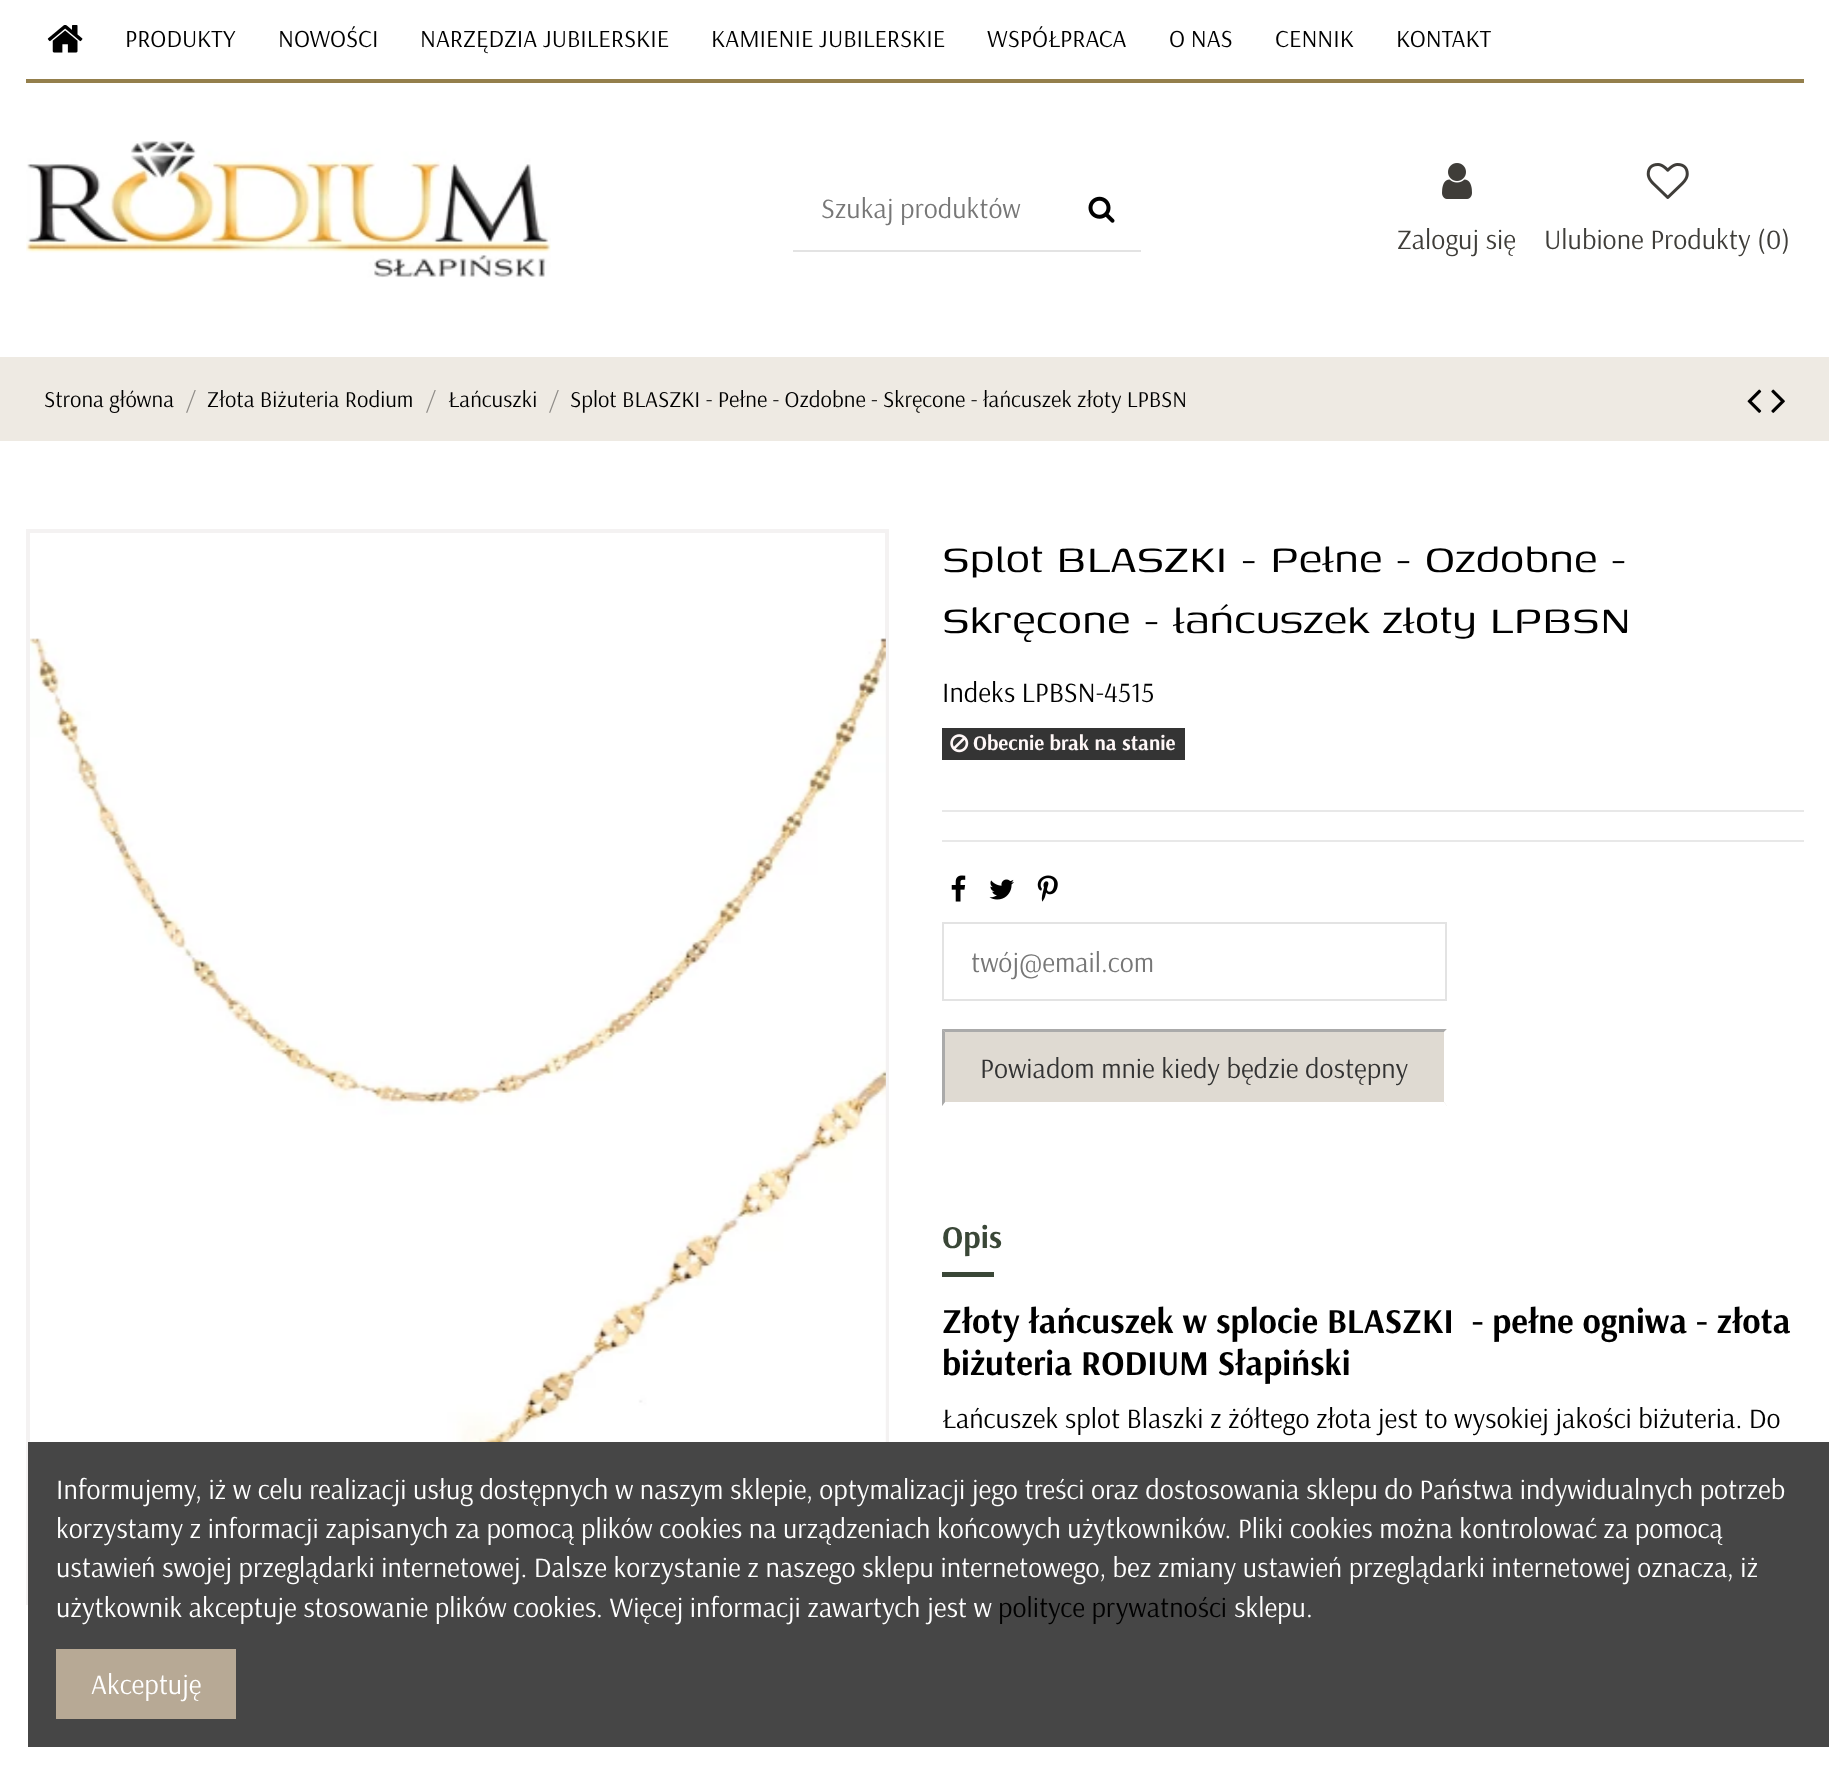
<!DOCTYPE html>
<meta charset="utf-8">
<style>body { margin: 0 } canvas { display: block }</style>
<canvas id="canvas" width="1829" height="1774"></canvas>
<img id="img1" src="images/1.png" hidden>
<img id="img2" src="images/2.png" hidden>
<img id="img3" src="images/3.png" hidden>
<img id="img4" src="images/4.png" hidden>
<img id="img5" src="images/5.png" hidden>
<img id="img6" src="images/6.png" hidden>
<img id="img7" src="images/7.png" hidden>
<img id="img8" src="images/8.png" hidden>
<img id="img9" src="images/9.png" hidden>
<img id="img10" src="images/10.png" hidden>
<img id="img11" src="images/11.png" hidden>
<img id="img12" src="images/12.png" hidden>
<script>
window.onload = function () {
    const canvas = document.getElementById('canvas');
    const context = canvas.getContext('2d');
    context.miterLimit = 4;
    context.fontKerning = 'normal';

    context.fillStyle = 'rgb(255, 255, 255)';
    context.fillRect(0, 0, 1829, 1774);
    context.fillStyle = 'rgb(148, 127, 76)';
    context.fillRect(26, 79, 1778, 4);
    context.drawImage(document.getElementById('img1'), 47, 25, 36, 28);
    context.drawImage(document.getElementById('img2'), 26, 141, 525, 137);
    context.fillStyle = 'rgb(227, 227, 227)';
    context.fillRect(793, 250, 348, 2);
    context.drawImage(document.getElementById('img3'), 1088, 196, 27, 27);
    context.drawImage(document.getElementById('img4'), 1442, 163, 30, 36);
    context.drawImage(document.getElementById('img5'), 1646, 163, 43, 36);
    context.fillStyle = 'rgb(238, 234, 227)';
    context.fillRect(0, 357, 1829, 84);
    context.drawImage(document.getElementById('img6'), 1747, 389, 15, 24);
    context.drawImage(document.getElementById('img7'), 1771, 389, 14, 24);
    context.strokeStyle = 'rgb(244, 242, 242)';
    context.lineWidth = 4;
    context.strokeRect(28, 531, 859, 1072);
    context.drawImage(document.getElementById('img8'), 30, 638, 856, 804);
    context.fillStyle = 'rgb(232, 232, 232)';
    context.fillRect(942, 810, 862, 2);
    context.fillStyle = 'rgb(52, 52, 52)';
    context.fillRect(942, 728, 243, 32);
    context.drawImage(document.getElementById('img9'), 950, 734, 19, 19);
    context.fillStyle = 'rgb(232, 232, 232)';
    context.fillRect(942, 840, 862, 2);
    context.drawImage(document.getElementById('img10'), 951, 875, 15, 27);
    context.drawImage(document.getElementById('img11'), 989, 879, 25, 21);
    context.drawImage(document.getElementById('img12'), 1037, 875, 21, 27);
    context.strokeStyle = 'rgb(227, 227, 227)';
    context.lineWidth = 2;
    context.strokeRect(943, 923, 503, 77);
    context.fillStyle = 'rgb(223, 218, 210)';
    context.fillRect(942, 1029, 505, 77);
    context.fillStyle = 'rgb(170, 170, 170)';
    context.beginPath();
    context.moveTo(942, 1029);
    context.lineTo(1447, 1029);
    context.lineTo(1444, 1032);
    context.lineTo(945, 1032);
    context.closePath();
    context.fill();
    context.fillStyle = 'rgb(255, 255, 255)';
    context.beginPath();
    context.moveTo(1447, 1029);
    context.lineTo(1447, 1106);
    context.lineTo(1444, 1102);
    context.lineTo(1444, 1032);
    context.closePath();
    context.fill();
    context.beginPath();
    context.moveTo(1447, 1106);
    context.lineTo(942, 1106);
    context.lineTo(945, 1102);
    context.lineTo(1444, 1102);
    context.closePath();
    context.fill();
    context.fillStyle = 'rgb(170, 170, 170)';
    context.beginPath();
    context.moveTo(942, 1106);
    context.lineTo(942, 1029);
    context.lineTo(945, 1032);
    context.lineTo(945, 1102);
    context.closePath();
    context.fill();
    context.fillStyle = 'rgb(58, 71, 55)';
    context.fillRect(942, 1272, 52, 5);
    context.fillStyle = 'rgb(70, 70, 70)';
    context.fillRect(28, 1442, 1801, 305);
    context.fillStyle = 'rgb(183, 169, 149)';
    context.fillRect(56, 1649, 180, 70);
    context.font = '24.5px Arsenal';
    context.fillStyle = 'rgb(0, 0, 0)';
    context.fillText('PRODUKTY', 125, 47);
    context.fillText('NOWOŚCI', 278, 47);
    context.fillText('NARZĘDZIA JUBILERSKIE', 420, 47);
    context.fillText('KAMIENIE JUBILERSKIE', 711, 47);
    context.fillText('WSPÓŁPRACA', 987, 47);
    context.fillText('O NAS', 1169, 47);
    context.fillText('CENNIK', 1275, 47);
    context.fillText('KONTAKT', 1396, 47);
    context.font = '28px Arsenal';
    context.fillStyle = 'rgb(119, 119, 119)';
    context.fillText('Szukaj produktów', 821, 218);
    context.fillStyle = 'rgb(63, 61, 57)';
    context.fillText('Zaloguj się', 1397, 249);
    context.fillText('Ulubione Produkty (0)', 1544, 249);
    context.font = '22.75px Arsenal';
    context.fillStyle = 'rgb(0, 0, 0)';
    context.fillText('Strona główna', 44, 407);
    context.fillStyle = 'rgb(143, 140, 136)';
    context.fillText('/', 186, 407);
    context.fillStyle = 'rgb(0, 0, 0)';
    context.fillText('Złota Biżuteria Rodium', 207, 407);
    context.fillStyle = 'rgb(143, 140, 136)';
    context.fillText('/', 426, 407);
    context.fillStyle = 'rgb(0, 0, 0)';
    context.fillText('Łańcuszki', 448, 407);
    context.fillStyle = 'rgb(143, 140, 136)';
    context.fillText('/', 549, 407);
    context.fillStyle = 'rgb(0, 0, 0)';
    context.fillText('Splot BLASZKI - Pełne - Ozdobne - Skręcone - łańcuszek złoty LPBSN', 570, 407);
    context.font = '50.75px Genos';
    context.fillText('Splot BLASZKI - Pełne - Ozdobne -', 942, 572);
    context.fillText('Skręcone - łańcuszek złoty LPBSN', 942, 633);
    context.font = '28px Arsenal';
    context.fillText('Indeks LPBSN-4515', 942, 702);
    context.font = 'bold 21px Arsenal';
    context.fillStyle = 'rgb(255, 247, 247)';
    context.fillText('Obecnie brak na stanie', 973, 750);
    context.font = '28px Arsenal';
    context.fillStyle = 'rgb(119, 119, 119)';
    context.fillText('twój@email.com', 971, 972);
    context.fillStyle = 'rgb(51, 51, 51)';
    context.fillText('Powiadom mnie kiedy będzie dostępny', 980, 1078);
    context.font = 'bold 32px Arsenal';
    context.fillStyle = 'rgb(58, 71, 55)';
    context.fillText('Opis', 942, 1248);
    context.font = 'bold 35px Arsenal';
    context.fillStyle = 'rgb(0, 0, 0)';
    context.fillText('Złoty łańcuszek w splocie BLASZKI  - pełne ogniwa - złota', 942, 1333);
    context.fillText('biżuteria RODIUM Słapiński', 942, 1375);
    context.font = '28px Arsenal';
    context.fillText('Łańcuszek splot Blaszki z żółtego złota jest to wysokiej jakości biżuteria. Do', 942, 1428);
    context.fillStyle = 'rgb(255, 255, 255)';
    context.fillText('Informujemy, iż w celu realizacji usług dostępnych w naszym sklepie, optymalizacji jego treści oraz dostosowania sklepu do Państwa indywidualnych potrzeb', 56, 1499);
    context.fillText('korzystamy z informacji zapisanych za pomocą plików cookies na urządzeniach końcowych użytkowników. Pliki cookies można kontrolować za pomocą', 56, 1538);
    context.fillText('ustawień swojej przeglądarki internetowej. Dalsze korzystanie z naszego sklepu internetowego, bez zmiany ustawień przeglądarki internetowej oznacza, iż', 56, 1577);
    context.fillText('użytkownik akceptuje stosowanie plików cookies. Więcej informacji zawartych jest w', 56, 1617);
    context.fillStyle = 'rgb(0, 0, 0)';
    context.fillText('polityce prywatności', 998, 1617);
    context.fillStyle = 'rgb(255, 255, 255)';
    context.fillText('sklepu.', 1234, 1617);
    context.fillText('Akceptuję', 91, 1694);
};
</script>
